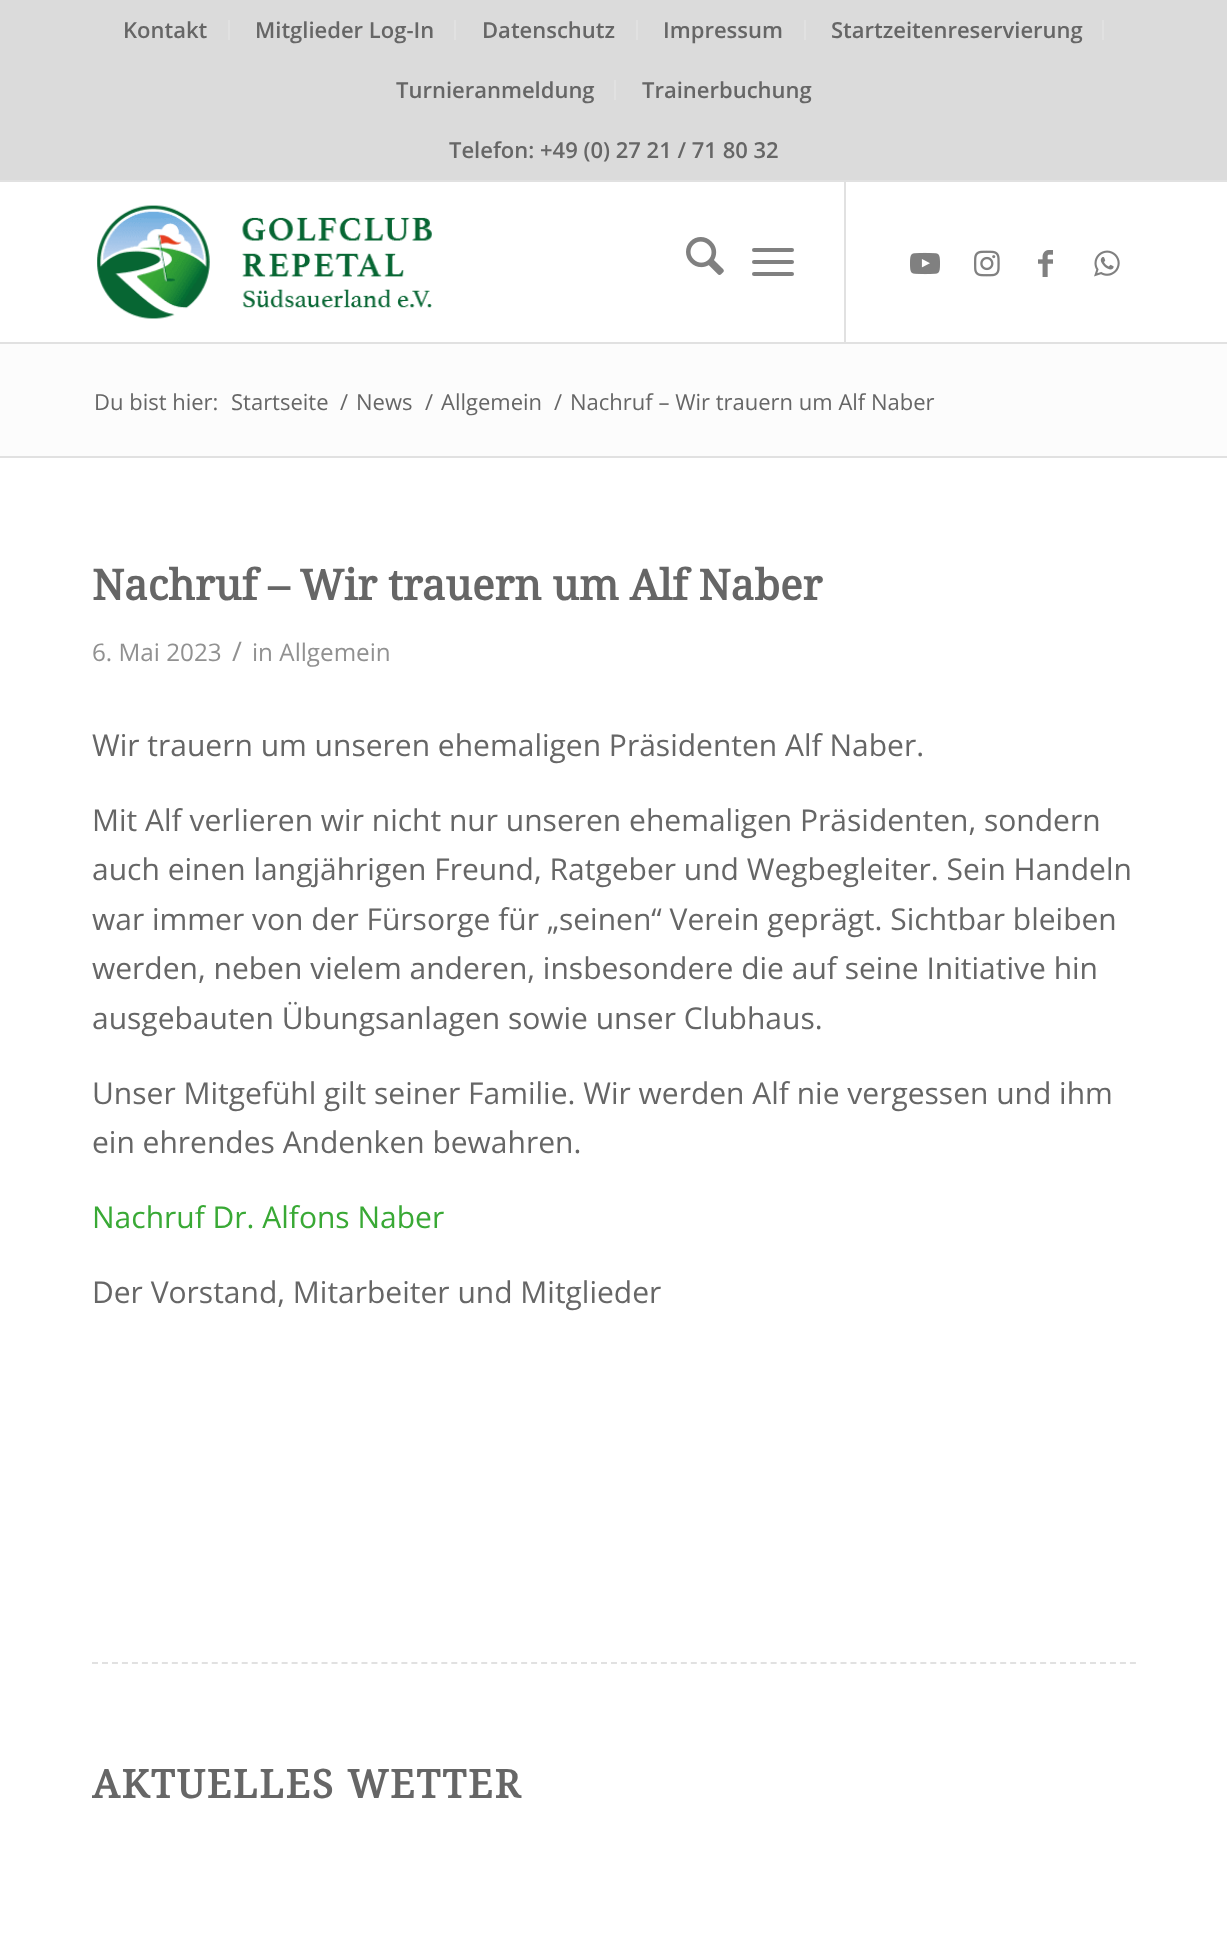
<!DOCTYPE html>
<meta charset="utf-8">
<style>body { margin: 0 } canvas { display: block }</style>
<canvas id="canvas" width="1227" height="1948"></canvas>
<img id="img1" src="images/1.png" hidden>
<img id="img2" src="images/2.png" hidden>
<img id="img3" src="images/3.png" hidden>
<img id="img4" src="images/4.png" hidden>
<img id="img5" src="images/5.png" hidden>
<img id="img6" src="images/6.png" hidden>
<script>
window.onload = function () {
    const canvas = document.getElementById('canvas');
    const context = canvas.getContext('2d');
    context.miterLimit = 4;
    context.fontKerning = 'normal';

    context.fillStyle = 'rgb(255, 255, 255)';
    context.fillRect(0, 0, 1227, 1948);
    context.fillStyle = 'rgb(219, 219, 219)';
    context.fillRect(0, 0, 1227, 180);
    context.fillStyle = 'rgb(225, 225, 225)';
    context.fillRect(0, 180, 1227, 2);
    context.fillRect(228, 20, 2, 20);
    context.fillRect(454, 20, 2, 20);
    context.fillRect(636, 20, 2, 20);
    context.fillRect(804, 20, 2, 20);
    context.fillRect(1102, 20, 2, 20);
    context.fillRect(614, 80, 2, 20);
    context.fillRect(0, 342, 1227, 2);
    context.drawImage(document.getElementById('img1'), 97, 205, 335, 114);
    context.fillRect(844, 182, 2, 160);
    context.drawImage(document.getElementById('img2'), 686, 237, 38, 38);
    context.fillStyle = 'rgb(128, 128, 128)';
    context.beginPath();
    context.roundRect(752, 260, 42, 4, 2);
    context.fill();
    context.beginPath();
    context.roundRect(752, 248, 42, 4, 2);
    context.fill();
    context.beginPath();
    context.roundRect(752, 272, 42, 4, 2);
    context.fill();
    context.drawImage(document.getElementById('img3'), 910, 252, 30, 23);
    context.drawImage(document.getElementById('img4'), 974, 250, 26, 27);
    context.drawImage(document.getElementById('img5'), 1038, 250, 15, 27);
    context.drawImage(document.getElementById('img6'), 1094, 250, 26, 27);
    context.fillStyle = 'rgb(252, 252, 252)';
    context.fillRect(0, 344, 1227, 112);
    context.fillStyle = 'rgb(225, 225, 225)';
    context.fillRect(0, 456, 1227, 2);
    context.beginPath();
    context.moveTo(92, 1663);
    context.lineTo(1136, 1663);
    context.strokeStyle = 'rgb(225, 225, 225)';
    context.lineWidth = 2;
    context.setLineDash([6, 3.98]);
    context.stroke();
    context.font = '600 22px Open Sans';
    context.fillStyle = 'rgb(102, 102, 102)';
    context.fillText('Kontakt', 123, 38);
    context.fillText('Mitglieder Log-In', 255, 38);
    context.fillText('Datenschutz', 482, 38);
    context.fillText('Impressum', 663, 38);
    context.fillText('Startzeitenreservierung', 831, 38);
    context.fillText('Turnieranmeldung', 396, 98);
    context.fillText('Trainerbuchung', 642, 98);
    context.fillText('Telefon: +49 (0) 27 21 / 71 80 32', 449, 158);
    context.font = '22px Open Sans';
    context.fillText('Du bist hier:', 94, 410);
    context.fillText('Startseite', 231, 410);
    context.fillText('/', 340, 410);
    context.fillText('News', 356, 410);
    context.fillText('/', 425, 410);
    context.fillText('Allgemein', 441, 410);
    context.fillText('/', 554, 410);
    context.fillText('Nachruf – Wir trauern um Alf Naber', 570, 410);
    context.font = 'bold 42px Droid Serif';
    context.fillText('Nachruf – Wir trauern um Alf Naber', 92, 600);
    context.font = '24.25px Open Sans';
    context.fillStyle = 'rgb(145, 145, 145)';
    context.fillText('6. Mai 2023', 92, 661);
    context.font = '27px Open Sans';
    context.fillText('/', 232, 661);
    context.font = '24.25px Open Sans';
    context.fillText('in Allgemein', 252, 661);
    context.font = '30px Open Sans';
    context.fillStyle = 'rgb(102, 102, 102)';
    context.fillText('Wir trauern um unseren ehemaligen Präsidenten Alf Naber.', 92, 756);
    context.fillText('Mit Alf verlieren wir nicht nur unseren ehemaligen Präsidenten, sondern', 92, 831);
    context.fillText('auch einen langjährigen Freund, Ratgeber und Wegbegleiter. Sein Handeln', 92, 880);
    context.fillText('war immer von der Fürsorge für „seinen“ Verein geprägt. Sichtbar bleiben', 92, 930);
    context.fillText('werden, neben vielem anderen, insbesondere die auf seine Initiative hin', 92, 979);
    context.fillText('ausgebauten Übungsanlagen sowie unser Clubhaus.', 92, 1029);
    context.fillText('Unser Mitgefühl gilt seiner Familie. Wir werden Alf nie vergessen und ihm', 92, 1104);
    context.fillText('ein ehrendes Andenken bewahren.', 92, 1153);
    context.fillStyle = 'rgb(57, 169, 53)';
    context.fillText('Nachruf Dr. Alfons Naber', 92, 1228);
    context.fillStyle = 'rgb(102, 102, 102)';
    context.fillText('Der Vorstand, Mitarbeiter und Mitglieder', 92, 1303);
    context.letterSpacing = '2px';
    context.font = 'bold 39px Droid Serif';
    context.fillText('AKTUELLES WETTER', 92, 1798);
};
</script>
